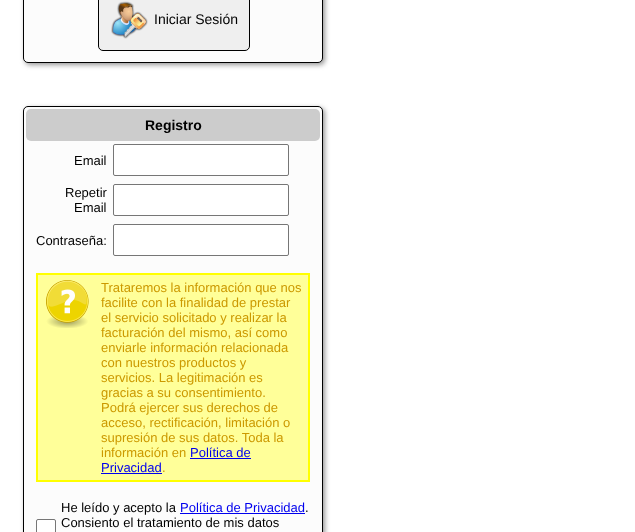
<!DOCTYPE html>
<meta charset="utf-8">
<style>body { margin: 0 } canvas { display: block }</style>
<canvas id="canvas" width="635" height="532"></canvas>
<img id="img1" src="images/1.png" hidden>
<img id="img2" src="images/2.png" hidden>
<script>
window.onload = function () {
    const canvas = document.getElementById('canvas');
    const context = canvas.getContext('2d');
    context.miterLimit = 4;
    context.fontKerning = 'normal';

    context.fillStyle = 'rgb(255, 255, 255)';
    context.fillRect(0, 0, 635, 532);
    context.fillStyle = 'rgb(153, 153, 153)';
    context.filter = 'blur(2.5px)';
    context.beginPath();
    context.roundRect(25, -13, 300, 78, 5);
    context.fill();
    context.filter = 'none';
    context.fillStyle = 'rgb(252, 252, 252)';
    context.beginPath();
    context.roundRect(23.5, -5.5, 299, 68, 4.5);
    context.fill();
    context.strokeStyle = 'rgb(0, 0, 0)';
    context.stroke();
    context.fillStyle = 'rgb(239, 239, 239)';
    context.beginPath();
    context.roundRect(98.5, -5.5, 151, 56, 4.5);
    context.fill();
    context.stroke();
    context.drawImage(document.getElementById('img1'), 111, 1, 37, 38);
    context.fillStyle = 'rgb(153, 153, 153)';
    context.filter = 'blur(2.5px)';
    context.beginPath();
    context.roundRect(25, 108, 300, 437, 5);
    context.fill();
    context.filter = 'none';
    context.fillStyle = 'rgb(252, 252, 252)';
    context.beginPath();
    context.roundRect(23.5, 106.5, 299, 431, 4.5);
    context.fill();
    context.stroke();
    context.fillStyle = 'rgb(204, 204, 204)';
    context.beginPath();
    context.roundRect(26, 109, 294, 32, 5);
    context.fill();
    context.fillStyle = 'rgb(255, 255, 255)';
    context.beginPath();
    context.roundRect(113.5, 144.5, 175, 31, 1.5);
    context.fill();
    context.strokeStyle = 'rgb(118, 118, 118)';
    context.stroke();
    context.beginPath();
    context.roundRect(113.5, 184.5, 175, 31, 1.5);
    context.fill();
    context.stroke();
    context.beginPath();
    context.roundRect(113.5, 224.5, 175, 31, 1.5);
    context.fill();
    context.stroke();
    context.fillStyle = 'rgb(255, 255, 153)';
    context.fillRect(38, 275, 270, 205);
    context.fillStyle = 'rgb(255, 255, 0)';
    context.fillRect(36, 273, 274, 2);
    context.fillRect(308, 273, 2, 209);
    context.fillRect(36, 480, 274, 2);
    context.fillRect(36, 273, 2, 209);
    context.drawImage(document.getElementById('img2'), 46, 280, 43, 48);
    context.fillStyle = 'rgb(0, 0, 238)';
    context.fillRect(190, 458, 61, 1);
    context.fillRect(101, 473, 61, 1);
    context.fillStyle = 'rgb(255, 255, 255)';
    context.beginPath();
    context.roundRect(36.5, 519.5, 19, 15, 1.5);
    context.fill();
    context.stroke();
    context.fillStyle = 'rgb(0, 0, 238)';
    context.fillRect(180, 513, 125, 1);
    context.font = '14px Liberation Sans';
    context.fillStyle = 'rgb(0, 0, 0)';
    context.fillText('Iniciar Sesión', 154, 24);
    context.font = 'bold 14px Liberation Sans';
    context.fillText('Registro', 145, 130);
    context.font = '13px Liberation Sans';
    context.fillText('Email', 74, 165);
    context.fillText('Repetir', 65, 197);
    context.fillText('Email', 74, 212);
    context.fillText('Contraseña:', 36, 245);
    context.fillStyle = 'rgb(204, 153, 0)';
    context.fillText('Trataremos la información que nos', 101, 292);
    context.fillText('facilite con la finalidad de prestar', 101, 307);
    context.fillText('el servicio solicitado y realizar la', 101, 322);
    context.fillText('facturación del mismo, así como', 101, 337);
    context.fillText('enviarle información relacionada', 101, 352);
    context.fillText('con nuestros productos y', 101, 367);
    context.fillText('servicios. La legitimación es', 101, 382);
    context.fillText('gracias a su consentimiento.', 101, 397);
    context.fillText('Podrá ejercer sus derechos de', 101, 412);
    context.fillText('acceso, rectificación, limitación o', 101, 427);
    context.fillText('supresión de sus datos. Toda la', 101, 442);
    context.fillText('información en', 101, 457);
    context.fillStyle = 'rgb(0, 0, 238)';
    context.fillText('Política de', 190, 457);
    context.fillText('Privacidad', 101, 472);
    context.fillStyle = 'rgb(204, 153, 0)';
    context.fillText('.', 162, 472);
    context.fillStyle = 'rgb(0, 0, 0)';
    context.fillText('He leído y acepto la', 61, 512);
    context.fillStyle = 'rgb(0, 0, 238)';
    context.fillText('Política de Privacidad', 180, 512);
    context.fillStyle = 'rgb(0, 0, 0)';
    context.fillText('.', 305, 512);
    context.fillText('Consiento el tratamiento de mis datos', 61, 527);
};
</script>
